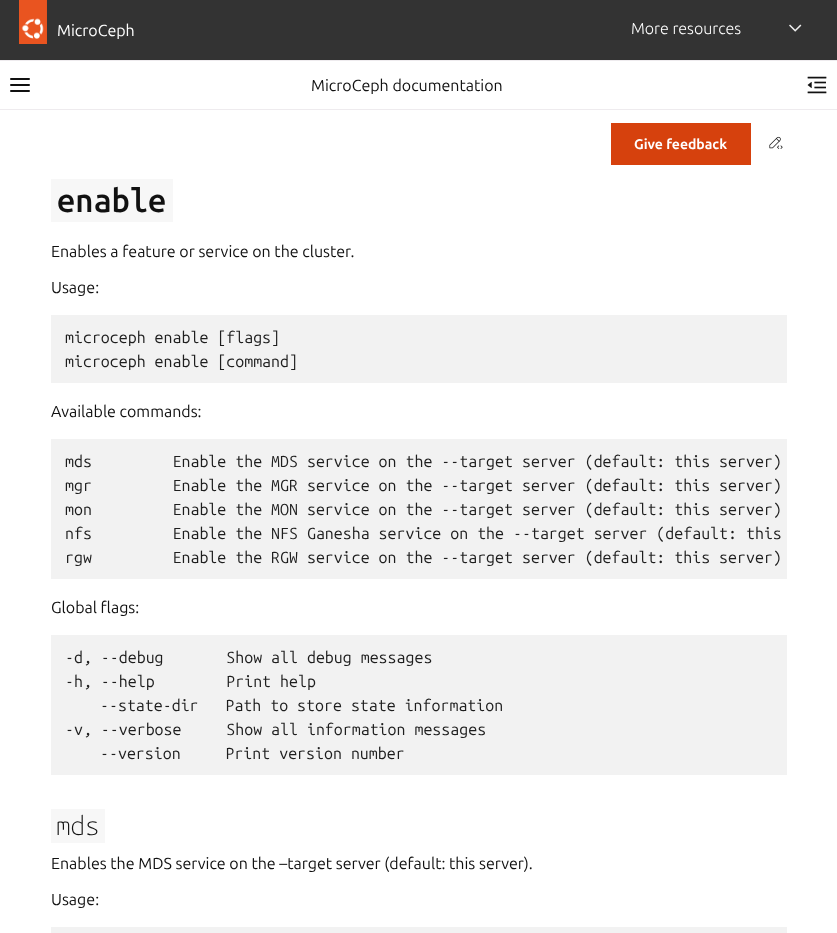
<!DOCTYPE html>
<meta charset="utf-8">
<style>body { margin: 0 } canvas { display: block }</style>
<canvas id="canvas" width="837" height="933"></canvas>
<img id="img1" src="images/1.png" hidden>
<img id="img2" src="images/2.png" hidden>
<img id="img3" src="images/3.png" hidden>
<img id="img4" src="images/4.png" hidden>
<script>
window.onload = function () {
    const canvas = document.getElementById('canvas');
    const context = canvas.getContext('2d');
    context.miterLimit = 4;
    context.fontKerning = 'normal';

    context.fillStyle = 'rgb(255, 255, 255)';
    context.fillRect(0, 0, 837, 933);
    context.fillStyle = 'rgb(238, 235, 238)';
    context.fillRect(0, 60, 837, 1);
    context.fillStyle = 'rgb(51, 51, 51)';
    context.fillRect(0, 0, 837, 60);
    context.drawImage(document.getElementById('img1'), 19, 0, 28, 44);
    context.drawImage(document.getElementById('img2'), 789, 24, 13, 8);
    context.fillStyle = 'rgb(238, 235, 238)';
    context.fillRect(0, 109, 837, 1);
    context.beginPath();
    context.moveTo(11, 85);
    context.lineTo(29, 85);
    context.moveTo(11, 79);
    context.lineTo(29, 79);
    context.moveTo(11, 91);
    context.lineTo(29, 91);
    context.strokeStyle = 'rgb(17, 17, 17)';
    context.lineWidth = 2;
    context.lineCap = 'round';
    context.lineJoin = 'round';
    context.stroke();
    context.drawImage(document.getElementById('img3'), 807, 76, 20, 18);
    context.fillStyle = 'rgb(214, 65, 13)';
    context.fillRect(611, 123, 140, 42);
    context.drawImage(document.getElementById('img4'), 769, 136, 14, 13);
    context.fillStyle = 'rgb(247, 247, 247)';
    context.fillRect(51, 179, 122, 43);
    context.fillStyle = 'rgb(242, 242, 242)';
    context.fillRect(51, 315, 736, 68);
    context.fillRect(51, 439, 736, 140);
    context.fillRect(51, 635, 736, 140);
    context.fillStyle = 'rgb(247, 247, 247)';
    context.fillRect(51, 809, 54, 34);
    context.fillStyle = 'rgb(242, 242, 242)';
    context.fillRect(51, 927, 736, 6);
    context.font = '16px Ubuntu';
    context.fillStyle = 'rgb(255, 255, 255)';
    context.fillText('MicroCeph', 57, 36);
    context.font = '300 16px Ubuntu';
    context.fillText('More resources', 631, 34);
    context.font = '16px Ubuntu';
    context.fillStyle = 'rgb(17, 17, 17)';
    context.fillText('MicroCeph documentation', 311, 91);
    context.font = 'bold 14px Ubuntu';
    context.fillStyle = 'rgb(255, 255, 255)';
    context.fillText('Give feedback', 634, 149);
    context.font = '500 32.5px Ubuntu Mono';
    context.fillStyle = 'rgb(17, 17, 17)';
    context.fillText('enable', 57, 212);
    context.font = '16px Ubuntu';
    context.fillText('Enables a feature or service on the cluster.', 51, 257);
    context.fillText('Usage:', 51, 293);
    context.font = '16px Ubuntu Mono';
    context.fillStyle = 'rgb(30, 30, 30)';
    context.fillText('microceph enable [flags]', 65, 343);
    context.fillText('microceph enable [command]', 65, 367);
    context.font = '16px Ubuntu';
    context.fillStyle = 'rgb(17, 17, 17)';
    context.fillText('Available commands:', 51, 417);
    context.font = '16px Ubuntu Mono';
    context.fillStyle = 'rgb(30, 30, 30)';
    context.fillText('mds         Enable the MDS service on the --target server (default: this server)', 65, 467);
    context.fillText('mgr         Enable the MGR service on the --target server (default: this server)', 65, 491);
    context.fillText('mon         Enable the MON service on the --target server (default: this server)', 65, 515);
    context.fillText('nfs         Enable the NFS Ganesha service on the --target server (default: this', 65, 539);
    context.fillText('rgw         Enable the RGW service on the --target server (default: this server)', 65, 563);
    context.font = '16px Ubuntu';
    context.fillStyle = 'rgb(17, 17, 17)';
    context.fillText('Global flags:', 51, 613);
    context.font = '16px Ubuntu Mono';
    context.fillStyle = 'rgb(30, 30, 30)';
    context.fillText('-d, --debug       Show all debug messages', 65, 663);
    context.fillText('-h, --help        Print help', 65, 687);
    context.fillText('--state-dir   Path to store state information', 100, 711);
    context.fillText('-v, --verbose     Show all information messages', 65, 735);
    context.fillText('--version     Print version number', 100, 759);
    context.font = '200 26px Ubuntu Mono';
    context.fillStyle = 'rgb(17, 17, 17)';
    context.fillText('mds', 56, 835);
    context.font = '16px Ubuntu';
    context.fillText('Enables the MDS service on the –target server (default: this server).', 51, 869);
    context.fillText('Usage:', 51, 905);
};
</script>
